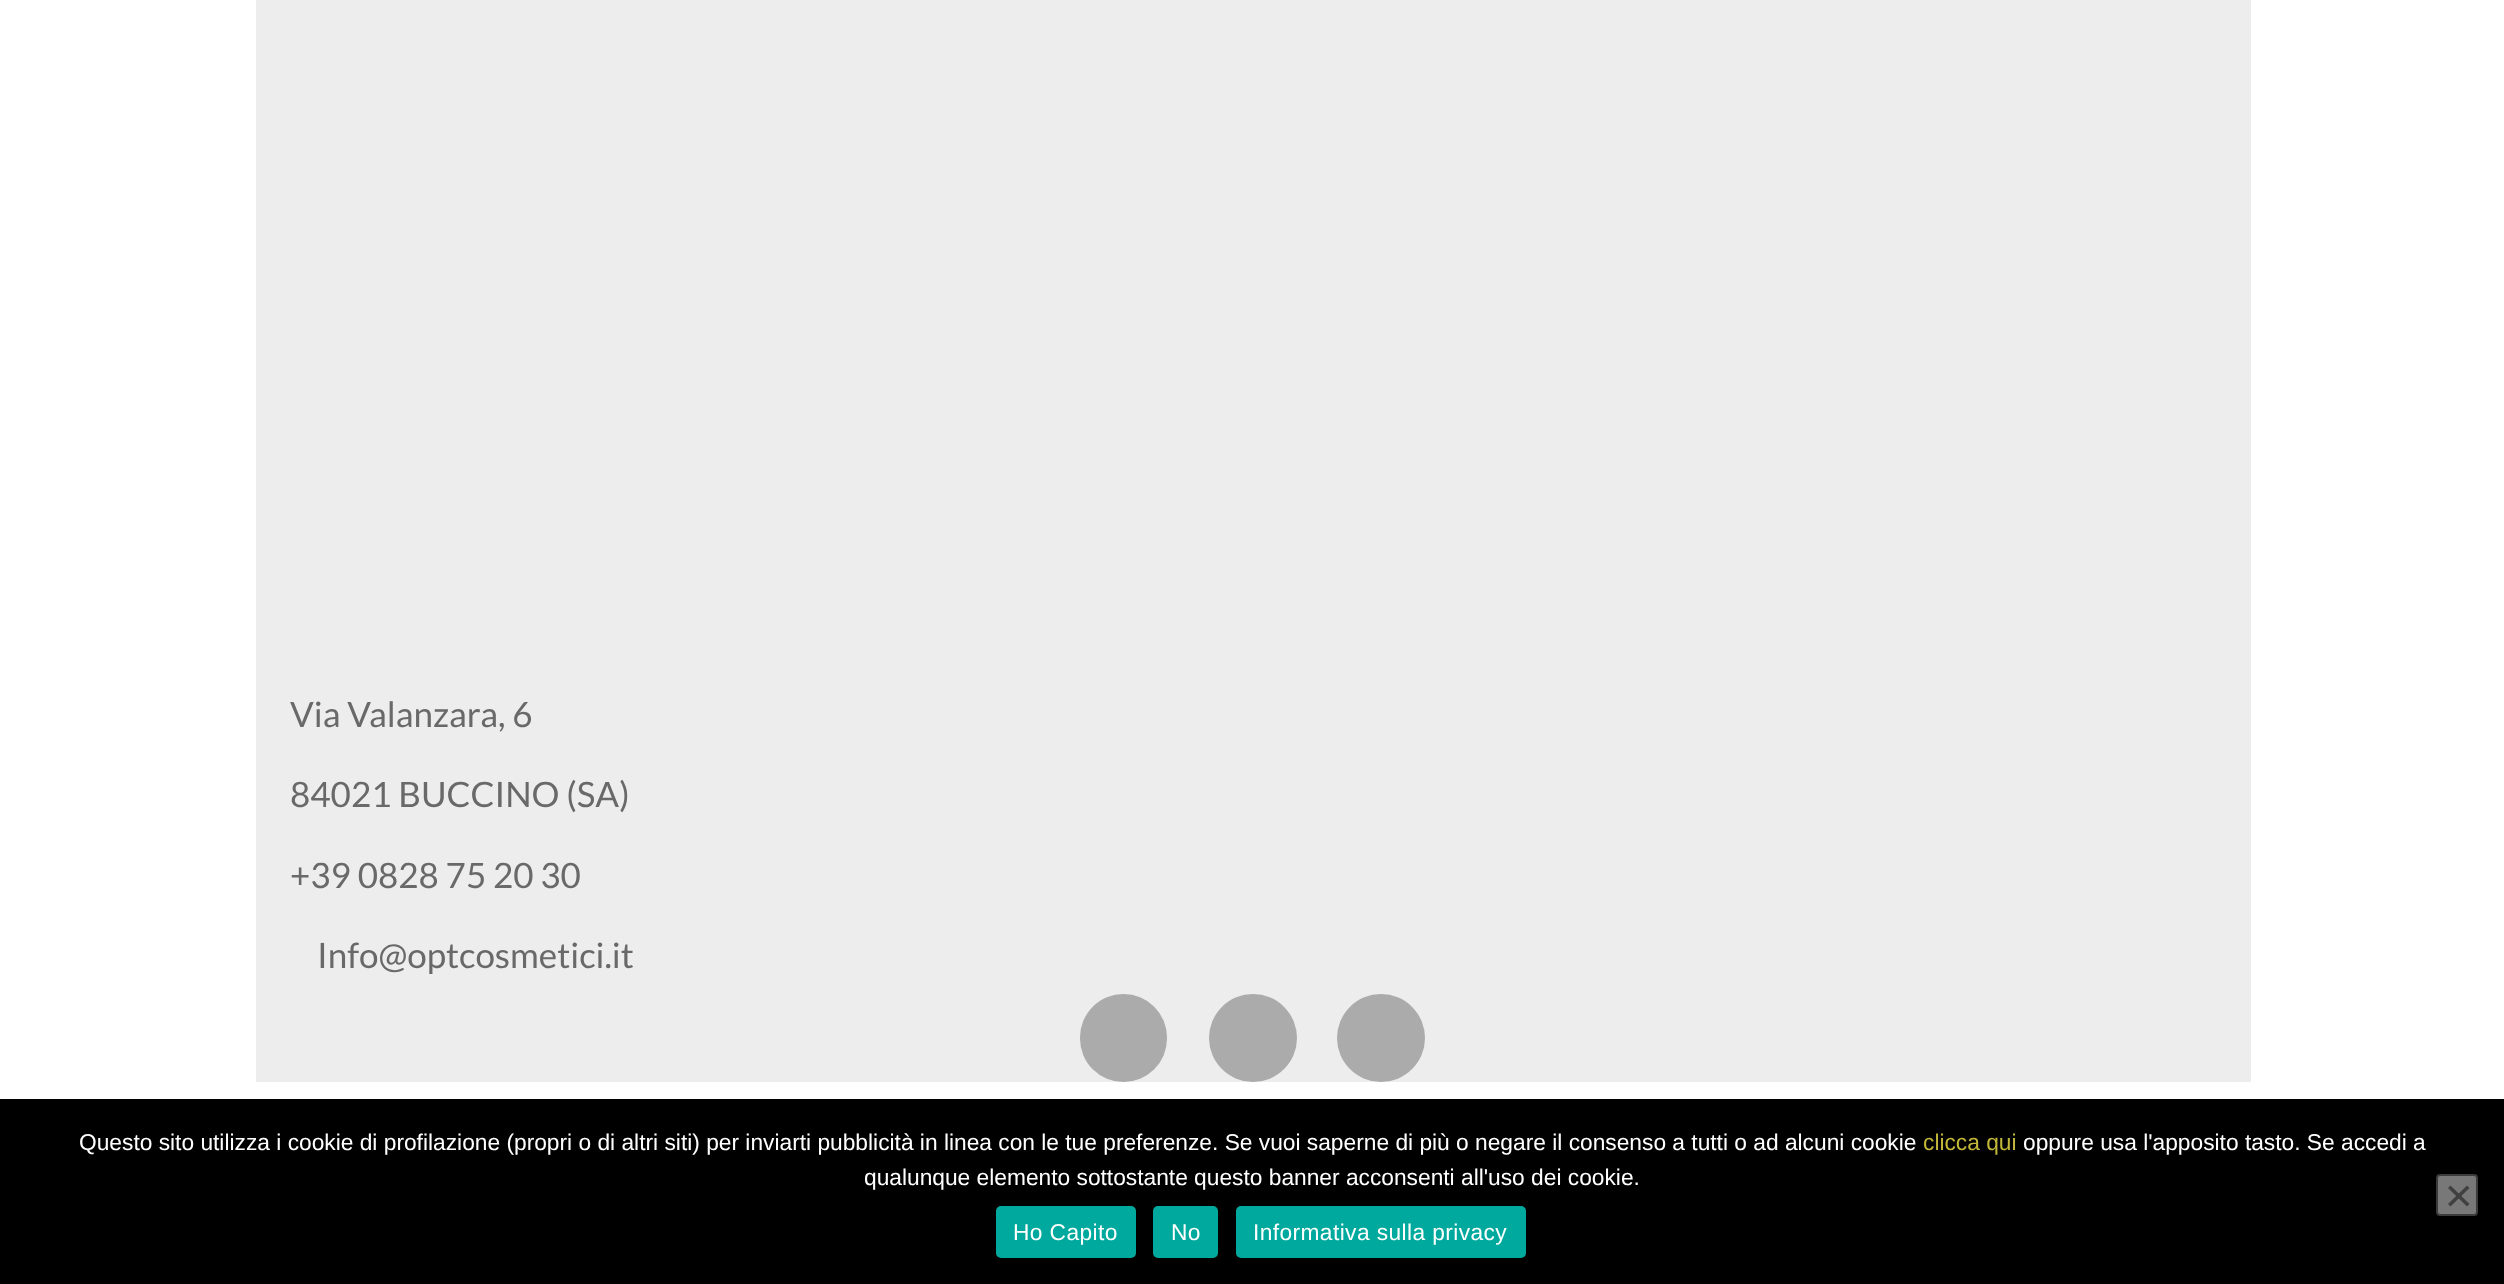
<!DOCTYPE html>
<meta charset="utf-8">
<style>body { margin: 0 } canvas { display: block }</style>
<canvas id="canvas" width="2504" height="1284"></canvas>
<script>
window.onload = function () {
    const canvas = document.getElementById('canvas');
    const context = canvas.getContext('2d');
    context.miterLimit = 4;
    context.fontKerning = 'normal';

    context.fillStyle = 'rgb(255, 255, 255)';
    context.fillRect(0, 0, 2504, 1284);
    context.fillStyle = 'rgb(237, 237, 237)';
    context.fillRect(256, 0, 1995, 1082);
    context.fillStyle = 'rgb(171, 171, 171)';
    context.beginPath();
    context.roundRect(1080, 994, 87, 88, 43.5);
    context.fill();
    context.beginPath();
    context.arc(1253, 1038, 44, 0, 2 * Math.PI);
    context.fill();
    context.beginPath();
    context.arc(1381, 1038, 44, 0, 2 * Math.PI);
    context.fill();
    context.fillStyle = 'rgb(0, 0, 0)';
    context.fillRect(0, 1099, 2504, 185);
    context.fillStyle = 'rgb(120, 120, 120)';
    context.beginPath();
    context.roundRect(2437, 1175, 40, 40, 3);
    context.fill();
    context.strokeStyle = 'rgb(59, 59, 59)';
    context.lineWidth = 2;
    context.stroke();
    context.fillStyle = 'rgb(64, 64, 64)';
    context.beginPath();
    context.moveTo(2467, 1185.5);
    context.lineTo(2469.5, 1188);
    context.lineTo(2450.5, 1206.5);
    context.lineTo(2448, 1204);
    context.closePath();
    context.fill();
    context.beginPath();
    context.moveTo(2448, 1188);
    context.lineTo(2450.5, 1185.5);
    context.lineTo(2469.5, 1204);
    context.lineTo(2467, 1206.5);
    context.closePath();
    context.fill();
    context.fillStyle = 'rgb(0, 169, 157)';
    context.beginPath();
    context.roundRect(996, 1206, 140, 52, 5);
    context.fill();
    context.beginPath();
    context.roundRect(1153, 1206, 65, 52, 5);
    context.fill();
    context.beginPath();
    context.roundRect(1236, 1206, 290, 52, 5);
    context.fill();
    context.font = '35px Lato';
    context.fillStyle = 'rgb(105, 105, 105)';
    context.fillText('Via Valanzara, 6', 290, 727);
    context.fillText('84021 BUCCINO (SA)', 290, 807);
    context.fillText('+39 0828 75 20 30', 290, 888);
    context.fillText('Info@optcosmetici.it', 317, 968);
    context.font = '22.75px Liberation Sans';
    context.fillStyle = 'rgb(255, 255, 255)';
    context.fillText('Questo sito utilizza i cookie di profilazione (propri o di altri siti) per inviarti pubblicità in linea con le tue preferenze. Se vuoi saperne di più o negare il consenso a tutti o ad alcuni cookie', 79, 1150);
    context.fillStyle = 'rgb(193, 183, 56)';
    context.fillText('clicca qui', 1923, 1150);
    context.fillStyle = 'rgb(255, 255, 255)';
    context.fillText('oppure usa l\'apposito tasto. Se accedi a', 2023, 1150);
    context.fillText('qualunque elemento sottostante questo banner acconsenti all\'uso dei cookie.', 864, 1185);
    context.letterSpacing = '0.4px';
    context.fillText('Ho Capito', 1013, 1240);
    context.fillText('No', 1171, 1240);
    context.fillText('Informativa sulla privacy', 1253, 1240);
};
</script>
